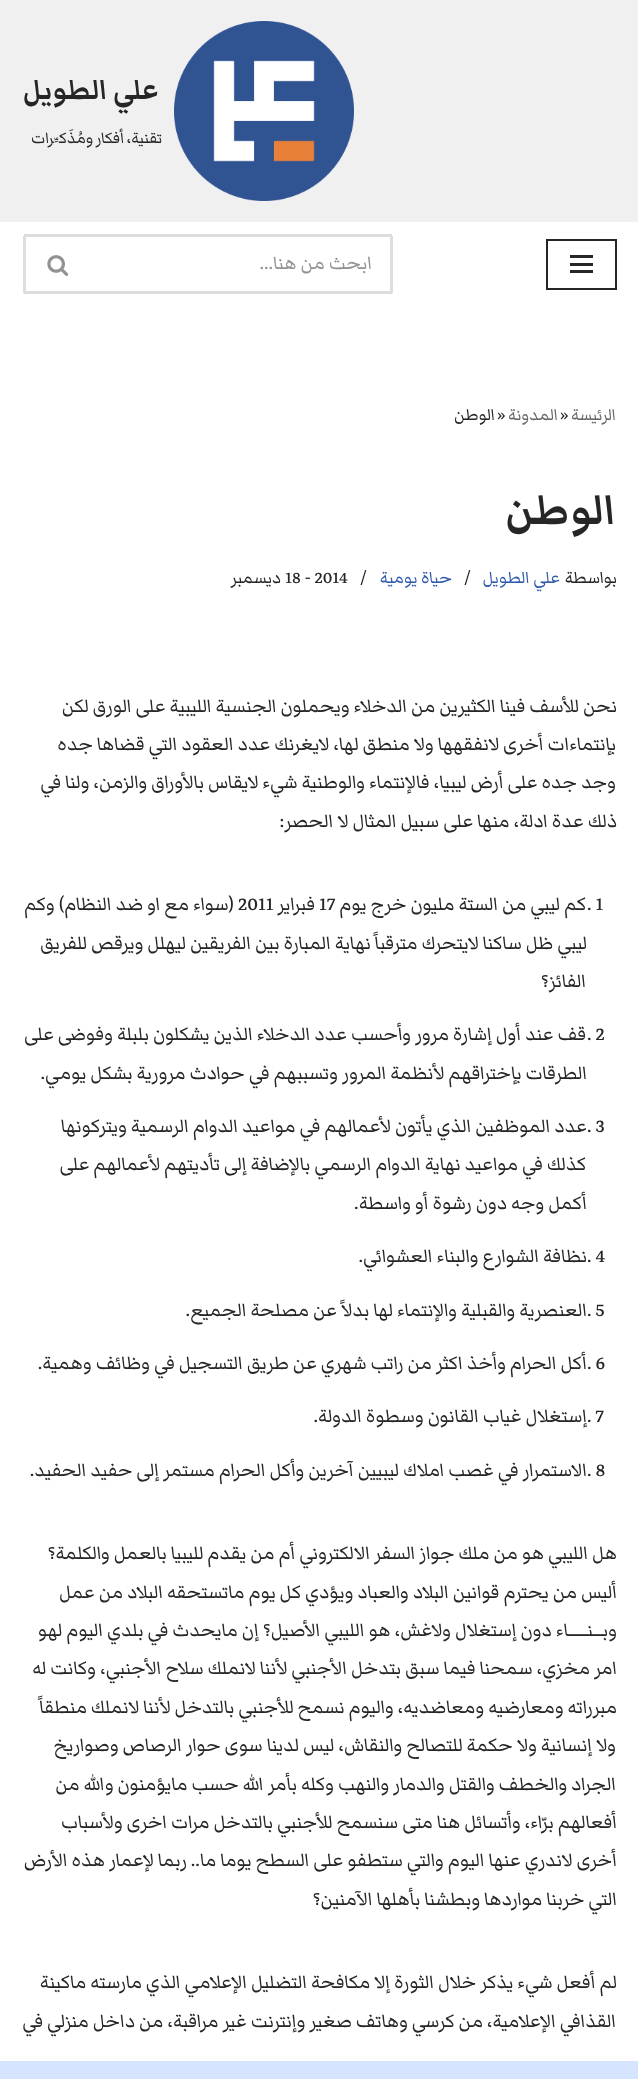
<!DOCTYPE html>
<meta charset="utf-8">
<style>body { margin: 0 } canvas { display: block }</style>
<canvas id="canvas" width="638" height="2079"></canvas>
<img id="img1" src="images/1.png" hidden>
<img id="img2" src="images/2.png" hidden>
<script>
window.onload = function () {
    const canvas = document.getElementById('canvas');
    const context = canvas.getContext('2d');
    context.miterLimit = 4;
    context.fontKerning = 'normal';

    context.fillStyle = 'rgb(255, 255, 255)';
    context.fillRect(0, 0, 638, 2079);
    context.fillStyle = 'rgb(240, 240, 240)';
    context.fillRect(0, 0, 638, 222);
    context.drawImage(document.getElementById('img1'), 174, 21, 180, 180);
    context.strokeStyle = 'rgb(39, 38, 38)';
    context.lineWidth = 2;
    context.strokeRect(547, 240, 69, 49);
    context.fillStyle = 'rgb(39, 38, 38)';
    context.fillRect(570, 255, 23, 3);
    context.fillRect(570, 263, 23, 3);
    context.fillRect(570, 270, 23, 3);
    context.fillStyle = 'rgb(221, 221, 221)';
    context.fillRect(24, 234, 368, 3);
    context.fillRect(390, 236, 3, 57);
    context.fillRect(24, 291, 368, 3);
    context.fillRect(23, 236, 3, 57);
    context.drawImage(document.getElementById('img2'), 47, 255, 22, 21);
    context.fillStyle = 'rgb(214, 229, 255)';
    context.fillRect(0, 2061, 638, 18);
    context.direction = 'rtl';
    context.font = 'bold 36px Markazi Text';
    context.fillStyle = 'rgb(39, 38, 38)';
    context.fillText('علي الطويل', 159, 99);
    context.wordSpacing = '-1px';
    context.font = '20px Markazi Text';
    context.fillText('تقنية، أفكار ومُذَكِّرات', 162, 143);
    context.wordSpacing = '0px';
    context.font = '24px Markazi Text';
    context.fillStyle = 'rgb(147, 147, 147)';
    context.fillText('ابحث من هنا...', 372, 269);
    context.font = '21px Markazi Text';
    context.fillStyle = 'rgb(103, 103, 103)';
    context.fillText('الرئيسة', 616, 420);
    context.direction = 'ltr';
    context.fillStyle = 'rgb(39, 38, 38)';
    context.fillText('»', 560, 420);
    context.direction = 'rtl';
    context.fillStyle = 'rgb(103, 103, 103)';
    context.fillText('المدونة', 558, 420);
    context.direction = 'ltr';
    context.fillStyle = 'rgb(39, 38, 38)';
    context.fillText('»', 497, 420);
    context.direction = 'rtl';
    context.fillText('الوطن', 495, 420);
    context.font = 'bold 54px Markazi Text';
    context.fillText('الوطن', 616, 524);
    context.font = '21.5px Markazi Text';
    context.fillText('بواسطة', 617, 583);
    context.fillStyle = 'rgb(47, 90, 174)';
    context.fillText('علي الطويل', 560, 583);
    context.direction = 'ltr';
    context.fillStyle = 'rgb(39, 38, 38)';
    context.fillText('/', 464, 583);
    context.direction = 'rtl';
    context.fillStyle = 'rgb(47, 90, 174)';
    context.fillText('حياة يومية', 452, 583);
    context.direction = 'ltr';
    context.fillStyle = 'rgb(39, 38, 38)';
    context.fillText('/', 360, 583);
    context.fillText('18 - 2014', 285, 583);
    context.direction = 'rtl';
    context.fillText('ديسمبر', 281, 583);
    context.font = '24px Markazi Text';
    context.fillText('نحن للأسف فينا الكثيرين من الدخلاء ويحملون الجنسية الليبية على الورق لكن', 617, 712);
    context.fillText('بإنتماءات أخرى لانفقهها ولا منطق لها، لايغرنك عدد العقود التي قضاها جده', 616, 750);
    context.fillText('وجد جده على أرض ليبيا، فالإنتماء والوطنية شيء لايقاس بالأوراق والزمن، ولنا في', 616, 788);
    context.fillText('ذلك عدة ادلة، منها على سبيل المثال لا الحصر:', 617, 827);
    context.direction = 'ltr';
    context.fillText('. 1', 587, 910);
    context.direction = 'rtl';
    context.fillText('كم ليبي من الستة مليون خرج يوم', 586, 910);
    context.direction = 'ltr';
    context.fillText('17', 319, 910);
    context.direction = 'rtl';
    context.fillText('فبراير', 315, 910);
    context.direction = 'ltr';
    context.fillText('2011', 238, 910);
    context.direction = 'rtl';
    context.fillText('(سواء مع او ضد النظام) وكم', 234, 910);
    context.fillText('ليبي ظل ساكنا لايتحرك مترقباً نهاية المبارة بين الفريقين ليهلل ويرقص للفريق', 587, 949);
    context.fillText('الفائز؟', 586, 987);
    context.direction = 'ltr';
    context.fillText('. 2', 587, 1040);
    context.direction = 'rtl';
    context.fillText('قف عند أول إشارة مرور وأحسب عدد الدخلاء الذين يشكلون بلبلة وفوضى على', 586, 1040);
    context.fillText('الطرقات بإختراقهم لأنظمة المرور وتسببهم في حوادث مرورية بشكل يومي.', 587, 1079);
    context.direction = 'ltr';
    context.fillText('. 3', 587, 1132);
    context.direction = 'rtl';
    context.fillText('عدد الموظفين الذي يأتون لأعمالهم في مواعيد الدوام الرسمية ويتركونها', 587, 1132);
    context.fillText('كذلك في مواعيد نهاية الدوام الرسمي بالإضافة إلى تأديتهم لأعمالهم على', 586, 1170);
    context.fillText('أكمل وجه دون رشوة أو واسطة.', 587, 1209);
    context.direction = 'ltr';
    context.fillText('. 4', 587, 1262);
    context.direction = 'rtl';
    context.fillText('نظافة الشوارع والبناء العشوائي.', 587, 1262);
    context.direction = 'ltr';
    context.fillText('. 5', 587, 1316);
    context.direction = 'rtl';
    context.fillText('العنصرية والقبلية والإنتماء لها بدلاً عن مصلحة الجميع.', 587, 1316);
    context.direction = 'ltr';
    context.fillText('. 6', 587, 1369);
    context.direction = 'rtl';
    context.fillText('أكل الحرام وأخذ اكثر من راتب شهري عن طريق التسجيل في وظائف وهمية.', 587, 1369);
    context.direction = 'ltr';
    context.fillText('. 7', 587, 1422);
    context.direction = 'rtl';
    context.fillText('إستغلال غياب القانون وسطوة الدولة.', 587, 1422);
    context.direction = 'ltr';
    context.fillText('. 8', 587, 1476);
    context.direction = 'rtl';
    context.fillText('الاستمرار في غصب املاك ليبيين آخرين وأكل الحرام مستمر إلى حفيد الحفيد.', 587, 1476);
    context.fillText('هل الليبي هو من ملك جواز السفر الالكتروني أم من يقدم لليبيا بالعمل والكلمة؟', 617, 1559);
    context.fillText('أليس من يحترم قوانين البلاد والعباد ويؤدي كل يوم ماتستحقه البلاد من عمل', 617, 1598);
    context.fillText('وبـــنــــــاء دون إستغلال ولاغش، هو الليبي الأصيل؟ إن مايحدث في بلدي اليوم لهو', 617, 1636);
    context.fillText('امر مخزي، سمحنا فيما سبق بتدخل الأجنبي لأننا لانملك سلاح الأجنبي، وكانت له', 617, 1674);
    context.fillText('مبرراته ومعارضيه ومعاضديه، واليوم نسمح للأجنبي بالتدخل لأننا لانملك منطقاً', 617, 1713);
    context.fillText('ولا إنسانية ولا حكمة للتصالح والنقاش، ليس لدينا سوى حوار الرصاص وصواريخ', 616, 1751);
    context.fillText('الجراد والخطف والقتل والدمار والنهب وكله بأمر الله حسب مايؤمنون والله من', 616, 1790);
    context.fillText('أفعالهم برّاء، وأتسائل هنا متى سنسمح للأجنبي بالتدخل مرات اخرى ولأسباب', 617, 1828);
    context.fillText('أخرى لاندري عنها اليوم والتي ستطفو على السطح يوما ما.. ربما لإعمار هذه الأرض', 617, 1866);
    context.fillText('التي خربنا مواردها وبطشنا بأهلها الآمنين؟', 617, 1905);
    context.fillText('لم أفعل شيء يذكر خلال الثورة إلا مكافحة التضليل الإعلامي الذي مارسته ماكينة', 617, 1988);
    context.fillText('القذافي الإعلامية، من كرسي وهاتف صغير وإنترنت غير مراقبة، من داخل منزلي في', 616, 2027);
};
</script>
